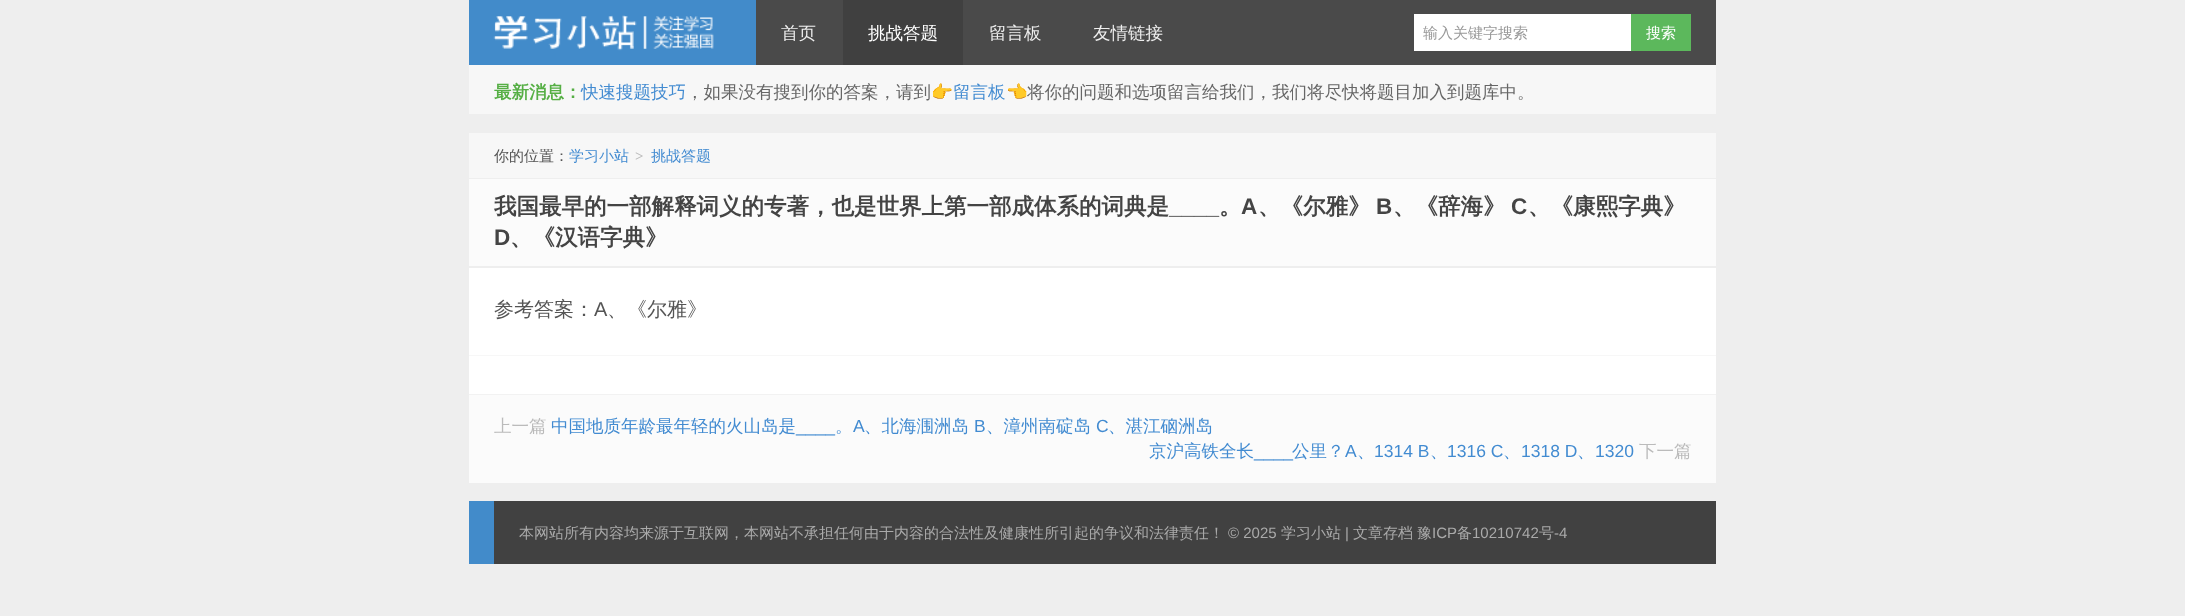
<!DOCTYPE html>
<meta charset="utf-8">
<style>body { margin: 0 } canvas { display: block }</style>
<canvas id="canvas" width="2185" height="616"></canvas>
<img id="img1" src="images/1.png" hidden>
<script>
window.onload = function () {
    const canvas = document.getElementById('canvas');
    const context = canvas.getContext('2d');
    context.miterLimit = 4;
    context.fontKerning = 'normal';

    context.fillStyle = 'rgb(238, 238, 238)';
    context.fillRect(0, 0, 2185, 616);
    context.fillStyle = 'rgb(74, 74, 74)';
    context.fillRect(756, 0, 960, 65);
    context.fillStyle = 'rgb(66, 139, 202)';
    context.fillRect(469, 0, 287, 65);
    context.drawImage(document.getElementById('img1'), 493, 15, 221, 36);
    context.fillStyle = 'rgb(64, 64, 64)';
    context.fillRect(843, 0, 120, 65);
    context.fillStyle = 'rgb(255, 255, 255)';
    context.fillRect(1414, 14, 217, 37);
    context.fillStyle = 'rgb(92, 184, 92)';
    context.fillRect(1631, 14, 60, 37);
    context.fillStyle = 'rgb(247, 247, 247)';
    context.fillRect(469, 65, 1247, 49);
    context.fillRect(469, 133, 1247, 45);
    context.fillStyle = 'rgb(251, 251, 251)';
    context.fillRect(469, 179, 1247, 87);
    context.fillStyle = 'rgb(255, 255, 255)';
    context.fillRect(469, 268, 1247, 87);
    context.fillRect(469, 356, 1247, 38);
    context.fillStyle = 'rgb(247, 247, 247)';
    context.fillRect(469, 355, 1247, 1);
    context.fillStyle = 'rgb(251, 251, 251)';
    context.fillRect(469, 395, 1247, 88);
    context.fillStyle = 'rgb(242, 242, 242)';
    context.fillRect(469, 394, 1247, 1);
    context.fillStyle = 'rgb(65, 65, 65)';
    context.fillRect(494, 501, 1222, 63);
    context.fillStyle = 'rgb(66, 139, 202)';
    context.fillRect(469, 501, 25, 63);
    context.font = '500 17.5px WenQuanYi Zen Hei';
    context.fillStyle = 'rgb(238, 238, 238)';
    context.fillText('首页', 781, 39);
    context.fillStyle = 'rgb(255, 255, 255)';
    context.fillText('挑战答题', 868, 39);
    context.fillStyle = 'rgb(238, 238, 238)';
    context.fillText('留言板', 989, 39);
    context.fillText('友情链接', 1093, 39);
    context.save();
    context.beginPath();
    context.rect(1423, 23, 200, 21);
    context.clip();
    context.font = '500 15px WenQuanYi Zen Hei';
    context.fillStyle = 'rgb(153, 153, 153)';
    context.fillText('输入关键字搜索', 1423, 38);
    context.restore();
    context.font = '500 15px WenQuanYi Zen Hei';
    context.fillStyle = 'rgb(255, 255, 255)';
    context.fillText('搜索', 1646, 38);
    context.font = 'bold 17.5px WenQuanYi Zen Hei';
    context.fillStyle = 'rgb(86, 175, 69)';
    context.fillText('最新消息：', 494, 98);
    context.font = '500 17.5px WenQuanYi Zen Hei';
    context.fillStyle = 'rgb(66, 139, 209)';
    context.fillText('快速搜题技巧', 581, 98);
    context.fillStyle = 'rgb(102, 102, 102)';
    context.fillText('，如果没有搜到你的答案，请到', 686, 98);
    context.font = '17.5px Noto Color Emoji';
    context.fillText('👉', 931, 98);
    context.font = '500 17.5px WenQuanYi Zen Hei';
    context.fillStyle = 'rgb(66, 139, 209)';
    context.fillText('留言板', 953, 98);
    context.font = '17.5px Noto Color Emoji';
    context.fillStyle = 'rgb(102, 102, 102)';
    context.fillText('👈', 1006, 98);
    context.font = '500 17.5px WenQuanYi Zen Hei';
    context.fillText('将你的问题和选项留言给我们，我们将尽快将题目加入到题库中。', 1027, 98);
    context.font = '500 15px WenQuanYi Zen Hei';
    context.fillStyle = 'rgb(85, 85, 85)';
    context.fillText('你的位置：', 494, 161);
    context.fillStyle = 'rgb(66, 139, 209)';
    context.fillText('学习小站', 569, 161);
    context.font = 'bold 15px Liberation Serif';
    context.fillStyle = 'rgb(187, 187, 187)';
    context.fillText('>', 635, 161);
    context.font = '500 15px WenQuanYi Zen Hei';
    context.fillStyle = 'rgb(66, 139, 209)';
    context.fillText('挑战答题', 651, 161);
    context.font = 'bold 22.5px WenQuanYi Zen Hei';
    context.fillStyle = 'rgb(68, 68, 68)';
    context.fillText('我国最早的一部解释词义的专著，也是世界上第一部成体系的词典是', 494, 214);
    context.font = 'bold 22.5px Liberation Sans';
    context.fillText('____', 1169, 214);
    context.font = 'bold 22.5px WenQuanYi Zen Hei';
    context.fillText('。', 1219, 214);
    context.font = 'bold 22.5px Liberation Sans';
    context.fillText('A', 1241, 214);
    context.font = 'bold 22.5px WenQuanYi Zen Hei';
    context.fillText('、《尔雅》', 1258, 214);
    context.font = 'bold 22.5px Liberation Sans';
    context.fillText('B', 1376, 214);
    context.font = 'bold 22.5px WenQuanYi Zen Hei';
    context.fillText('、《辞海》', 1393, 214);
    context.font = 'bold 22.5px Liberation Sans';
    context.fillText('C', 1511, 214);
    context.font = 'bold 22.5px WenQuanYi Zen Hei';
    context.fillText('、《康熙字典》', 1528, 214);
    context.font = 'bold 22.5px Liberation Sans';
    context.fillText('D', 494, 245);
    context.font = 'bold 22.5px WenQuanYi Zen Hei';
    context.fillText('、《汉语字典》', 510, 245);
    context.font = '500 20px WenQuanYi Zen Hei';
    context.fillStyle = 'rgb(85, 85, 85)';
    context.fillText('参考答案：', 494, 316);
    context.font = '20px Liberation Sans';
    context.fillText('A', 594, 316);
    context.font = '500 20px WenQuanYi Zen Hei';
    context.fillText('、《尔雅》', 607, 316);
    context.font = '500 17.5px WenQuanYi Zen Hei';
    context.fillStyle = 'rgb(187, 187, 187)';
    context.fillText('上一篇', 494, 432);
    context.fillStyle = 'rgb(66, 139, 209)';
    context.fillText('中国地质年龄最年轻的火山岛是', 551, 432);
    context.fillText('。', 835, 432);
    context.font = '17.5px Liberation Sans';
    context.fillText('A', 853, 432);
    context.font = '500 17.5px WenQuanYi Zen Hei';
    context.fillText('、北海涠洲岛', 864, 432);
    context.font = '17.5px Liberation Sans';
    context.fillText('B', 974, 432);
    context.font = '500 17.5px WenQuanYi Zen Hei';
    context.fillText('、漳州南碇岛', 986, 432);
    context.font = '17.5px Liberation Sans';
    context.fillText('C', 1096, 432);
    context.font = '500 17.5px WenQuanYi Zen Hei';
    context.fillText('、湛江硇洲岛', 1108, 432);
    context.font = '17.5px Liberation Sans';
    context.fillText('____', 796, 432);
    context.font = '500 17.5px WenQuanYi Zen Hei';
    context.fillText('京沪高铁全长', 1149, 457);
    context.font = '17.5px Liberation Sans';
    context.fillText('____', 1254, 457);
    context.font = '500 17.5px WenQuanYi Zen Hei';
    context.fillText('公里？', 1292, 457);
    context.font = '17.5px Liberation Sans';
    context.fillText('A', 1345, 457);
    context.font = '500 17.5px WenQuanYi Zen Hei';
    context.fillText('、', 1357, 457);
    context.font = '17.5px Liberation Sans';
    context.fillText('1314 B', 1374, 457);
    context.font = '500 17.5px WenQuanYi Zen Hei';
    context.fillText('、', 1430, 457);
    context.font = '17.5px Liberation Sans';
    context.fillText('1316 C', 1447, 457);
    context.font = '500 17.5px WenQuanYi Zen Hei';
    context.fillText('、', 1503, 457);
    context.font = '17.5px Liberation Sans';
    context.fillText('1318 D', 1521, 457);
    context.font = '500 17.5px WenQuanYi Zen Hei';
    context.fillText('、', 1577, 457);
    context.font = '17.5px Liberation Sans';
    context.fillText('1320', 1595, 457);
    context.font = '500 17.5px WenQuanYi Zen Hei';
    context.fillStyle = 'rgb(187, 187, 187)';
    context.fillText('下一篇', 1639, 457);
    context.font = '500 15px WenQuanYi Zen Hei';
    context.fillStyle = 'rgb(170, 170, 170)';
    context.fillText('本网站所有内容均来源于互联网，本网站不承担任何由于内容的合法性及健康性所引起的争议和法律责任！', 519, 538);
    context.font = '15px Liberation Sans';
    context.fillText('© 2025', 1228, 538);
    context.font = '500 15px WenQuanYi Zen Hei';
    context.fillText('学习小站', 1281, 538);
    context.font = '15px Liberation Sans';
    context.fillText('|', 1345, 538);
    context.font = '500 15px WenQuanYi Zen Hei';
    context.fillText('文章存档', 1353, 538);
    context.fillText('豫', 1417, 538);
    context.font = '15px Liberation Sans';
    context.fillText('ICP', 1432, 538);
    context.font = '500 15px WenQuanYi Zen Hei';
    context.fillText('备', 1457, 538);
    context.font = '15px Liberation Sans';
    context.fillText('10210742', 1472, 538);
    context.font = '500 15px WenQuanYi Zen Hei';
    context.fillText('号', 1539, 538);
    context.font = '15px Liberation Sans';
    context.fillText('-4', 1554, 538);
};
</script>
